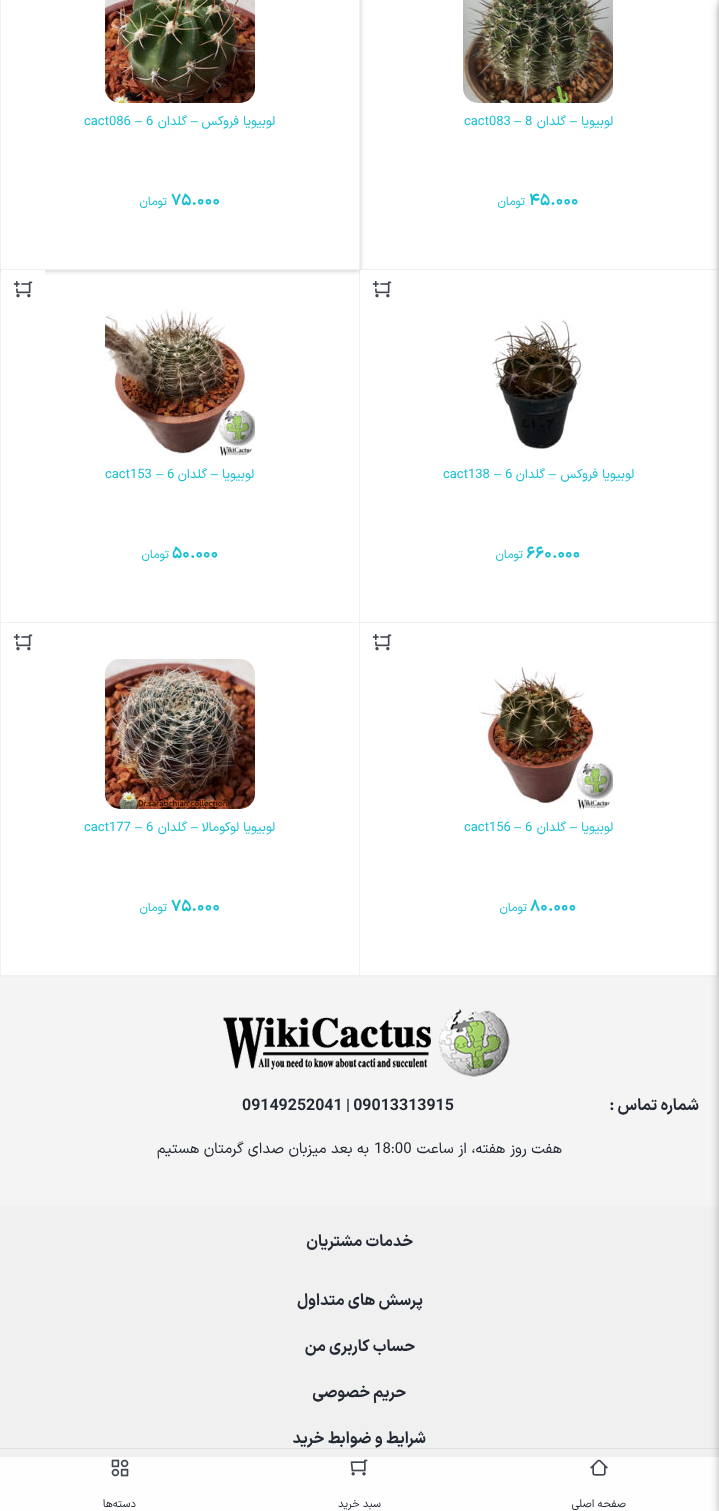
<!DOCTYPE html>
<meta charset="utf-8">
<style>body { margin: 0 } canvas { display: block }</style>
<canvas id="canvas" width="719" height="1511"></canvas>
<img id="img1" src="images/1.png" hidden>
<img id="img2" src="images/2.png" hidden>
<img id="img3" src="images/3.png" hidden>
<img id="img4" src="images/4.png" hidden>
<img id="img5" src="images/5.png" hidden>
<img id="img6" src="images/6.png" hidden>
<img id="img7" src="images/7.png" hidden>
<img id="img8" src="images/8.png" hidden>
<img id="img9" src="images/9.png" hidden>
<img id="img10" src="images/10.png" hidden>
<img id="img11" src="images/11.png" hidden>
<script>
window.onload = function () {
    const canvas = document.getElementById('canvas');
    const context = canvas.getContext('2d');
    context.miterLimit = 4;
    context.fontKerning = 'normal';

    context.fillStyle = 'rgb(240, 240, 241)';
    context.fillRect(0, 0, 719, 1511);
    context.fillStyle = 'rgb(254, 254, 254)';
    context.fillRect(0, 1457, 719, 54);
    context.fillStyle = 'rgb(255, 255, 255)';
    context.fillRect(360, 0, 357, 269);
    context.fillRect(360, 270, 357, 352);
    context.fillRect(360, 623, 357, 352);
    context.fillStyle = 'rgb(244, 244, 244)';
    context.fillRect(0, 977, 719, 229);
    context.fillStyle = 'rgb(224, 224, 226)';
    context.fillRect(0, 1448, 719, 1);
    context.fillStyle = 'rgba(0, 0, 0, 0.3)';
    context.filter = 'blur(4px)';
    context.beginPath();
    context.rect(719, 4, 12, 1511);
    context.fill();
    context.filter = 'none';
    context.drawImage(document.getElementById('img1'), 463, 0, 150, 103);
    context.fillStyle = 'rgb(255, 255, 255)';
    context.fillRect(1, 270, 358, 352);
    context.fillStyle = 'rgba(0, 0, 0, 0.2)';
    context.filter = 'blur(2.5px)';
    context.beginPath();
    context.rect(0, -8, 360, 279);
    context.fill();
    context.filter = 'none';
    context.fillStyle = 'rgb(255, 255, 255)';
    context.beginPath();
    context.rect(0.5, -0.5, 359, 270);
    context.fill();
    context.strokeStyle = 'rgb(240, 240, 241)';
    context.stroke();
    context.drawImage(document.getElementById('img2'), 105, 0, 150, 103);
    context.fillRect(360, 270, 3, 4);
    context.drawImage(document.getElementById('img3'), 372, 281, 20, 17);
    context.drawImage(document.getElementById('img4'), 487, 314, 96, 136);
    context.fillRect(1, 270, 44, 5);
    context.drawImage(document.getElementById('img3'), 13, 281, 20, 17);
    context.drawImage(document.getElementById('img5'), 105, 306, 150, 150);
    context.drawImage(document.getElementById('img3'), 372, 634, 20, 17);
    context.drawImage(document.getElementById('img6'), 479, 667, 134, 142);
    context.fillRect(1, 623, 358, 352);
    context.drawImage(document.getElementById('img3'), 13, 634, 20, 17);
    context.drawImage(document.getElementById('img7'), 105, 659, 150, 150);
    context.drawImage(document.getElementById('img8'), 223, 1009, 287, 68);
    context.drawImage(document.getElementById('img9'), 590, 1459, 18, 17);
    context.drawImage(document.getElementById('img10'), 350, 1459, 18, 17);
    context.drawImage(document.getElementById('img11'), 111, 1459, 18, 18);
    context.direction = 'rtl';
    context.font = '13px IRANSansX';
    context.fillStyle = 'rgb(25, 191, 211)';
    context.fillText('لوبیویا', 613, 125);
    context.font = '13px Liberation Sans';
    context.fillText('–', 577, 125);
    context.font = '13px IRANSansX';
    context.fillText('گلدان', 566, 125);
    context.direction = 'ltr';
    context.fillText('8', 525, 125);
    context.font = '13px Liberation Sans';
    context.fillText('–', 514, 125);
    context.font = '13px IRANSansX';
    context.fillText('cact083', 464, 125);
    context.font = 'bold 16px IRANSansX';
    context.fillText('۴۵.۰۰۰', 529, 205);
    context.direction = 'rtl';
    context.font = '12px IRANSansX';
    context.fillText('تومان', 525, 205);
    context.font = '13px IRANSansX';
    context.fillText('لوبیویا فروکس', 275, 125);
    context.font = '13px Liberation Sans';
    context.fillText('–', 198, 125);
    context.font = '13px IRANSansX';
    context.fillText('گلدان', 187, 125);
    context.direction = 'ltr';
    context.fillText('6', 146, 125);
    context.font = '13px Liberation Sans';
    context.fillText('–', 135, 125);
    context.font = '13px IRANSansX';
    context.fillText('cact086', 84, 125);
    context.font = 'bold 16px IRANSansX';
    context.fillText('۷۵.۰۰۰', 171, 205);
    context.direction = 'rtl';
    context.font = '12px IRANSansX';
    context.fillText('تومان', 167, 205);
    context.font = '13px IRANSansX';
    context.fillText('لوبیویا فروکس', 634, 478);
    context.font = '13px Liberation Sans';
    context.fillText('–', 556, 478);
    context.font = '13px IRANSansX';
    context.fillText('گلدان', 545, 478);
    context.direction = 'ltr';
    context.fillText('6', 505, 478);
    context.font = '13px Liberation Sans';
    context.fillText('–', 494, 478);
    context.font = '13px IRANSansX';
    context.fillText('cact138', 443, 478);
    context.font = 'bold 16px IRANSansX';
    context.fillText('۶۶۰.۰۰۰', 526, 558);
    context.direction = 'rtl';
    context.font = '12px IRANSansX';
    context.fillText('تومان', 523, 558);
    context.font = '13px IRANSansX';
    context.fillText('لوبیویا', 254, 478);
    context.font = '13px Liberation Sans';
    context.fillText('–', 218, 478);
    context.font = '13px IRANSansX';
    context.fillText('گلدان', 207, 478);
    context.direction = 'ltr';
    context.fillText('6', 167, 478);
    context.font = '13px Liberation Sans';
    context.fillText('–', 156, 478);
    context.font = '13px IRANSansX';
    context.fillText('cact153', 105, 478);
    context.font = 'bold 16px IRANSansX';
    context.fillText('۵۰.۰۰۰', 172, 558);
    context.direction = 'rtl';
    context.font = '12px IRANSansX';
    context.fillText('تومان', 169, 558);
    context.font = '13px IRANSansX';
    context.fillText('لوبیویا', 613, 831);
    context.font = '13px Liberation Sans';
    context.fillText('–', 577, 831);
    context.font = '13px IRANSansX';
    context.fillText('گلدان', 566, 831);
    context.direction = 'ltr';
    context.fillText('6', 525, 831);
    context.font = '13px Liberation Sans';
    context.fillText('–', 514, 831);
    context.font = '13px IRANSansX';
    context.fillText('cact156', 464, 831);
    context.font = 'bold 16px IRANSansX';
    context.fillText('۸۰.۰۰۰', 530, 911);
    context.direction = 'rtl';
    context.font = '12px IRANSansX';
    context.fillText('تومان', 527, 911);
    context.font = '13px IRANSansX';
    context.fillText('لوبیویا لوکومالا', 275, 831);
    context.font = '13px Liberation Sans';
    context.fillText('–', 198, 831);
    context.font = '13px IRANSansX';
    context.fillText('گلدان', 187, 831);
    context.direction = 'ltr';
    context.fillText('6', 146, 831);
    context.font = '13px Liberation Sans';
    context.fillText('–', 135, 831);
    context.font = '13px IRANSansX';
    context.fillText('cact177', 84, 831);
    context.font = 'bold 16px IRANSansX';
    context.fillText('۷۵.۰۰۰', 171, 911);
    context.direction = 'rtl';
    context.font = '12px IRANSansX';
    context.fillText('تومان', 167, 911);
    context.font = 'bold 16px IRANSansX';
    context.fillStyle = 'rgb(35, 41, 51)';
    context.fillText('شماره تماس :', 699, 1110);
    context.direction = 'ltr';
    context.fillText('09149252041 | 09013313915', 242, 1110);
    context.direction = 'rtl';
    context.font = '15px IRANSansX';
    context.fillText('هفت روز هفته، از ساعت', 562, 1153);
    context.direction = 'ltr';
    context.fillText('18:00', 374, 1153);
    context.direction = 'rtl';
    context.fillText('به بعد میزبان صدای گرمتان هستیم', 369, 1153);
    context.font = 'bold 16px IRANSansX';
    context.fillText('خدمات مشتریان', 413, 1246);
    context.fillText('پرسش های متداول', 423, 1305);
    context.fillText('حساب کاربری من', 415, 1351);
    context.fillText('حریم خصوصی', 406, 1397);
    context.fillText('شرایط و ضوابط خرید', 426, 1443);
    context.font = '11px IRANSansX';
    context.fillText('صفحه اصلی', 626, 1507);
    context.fillText('سبد خرید', 381, 1507);
    context.fillText('دسته‌ها', 136, 1507);
};
</script>
